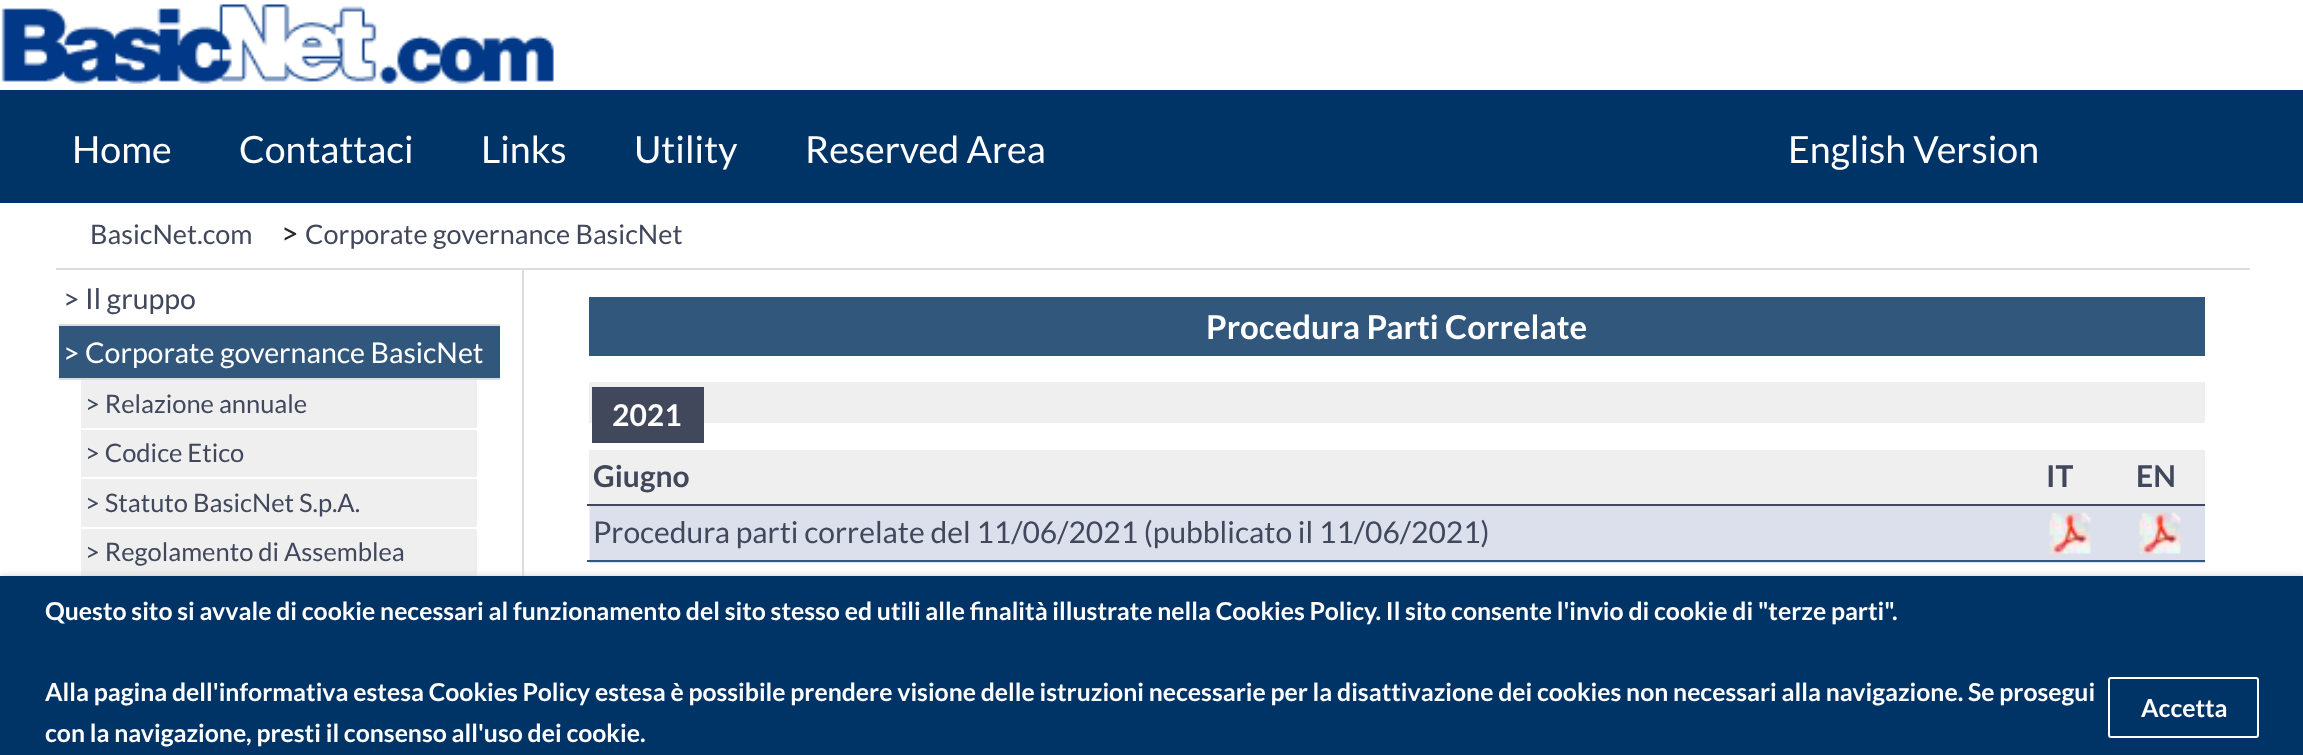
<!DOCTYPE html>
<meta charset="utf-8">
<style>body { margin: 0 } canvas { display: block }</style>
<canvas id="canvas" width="2303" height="755"></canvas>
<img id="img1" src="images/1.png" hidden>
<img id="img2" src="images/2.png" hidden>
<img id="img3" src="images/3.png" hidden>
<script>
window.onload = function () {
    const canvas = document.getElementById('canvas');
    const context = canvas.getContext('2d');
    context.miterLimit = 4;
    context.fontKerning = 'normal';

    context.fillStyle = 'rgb(255, 255, 255)';
    context.fillRect(0, 0, 2303, 755);
    context.drawImage(document.getElementById('img1'), 1, 4, 553, 80);
    context.fillStyle = 'rgb(0, 51, 102)';
    context.fillRect(0, 90, 2303, 113);
    context.fillStyle = 'rgb(221, 221, 221)';
    context.fillRect(56, 268, 2194, 2);
    context.fillRect(59, 324, 441, 2);
    context.fillStyle = 'rgb(49, 87, 124)';
    context.fillRect(59, 326, 441, 52);
    context.fillStyle = 'rgb(221, 221, 221)';
    context.fillRect(59, 378, 441, 2);
    context.fillStyle = 'rgb(239, 239, 239)';
    context.fillRect(81, 380, 396, 48);
    context.fillRect(81, 430, 396, 47);
    context.fillRect(81, 479, 396, 48);
    context.fillRect(81, 529, 396, 47);
    context.fillStyle = 'rgb(221, 221, 221)';
    context.fillRect(522, 270, 2, 306);
    context.fillStyle = 'rgb(49, 87, 124)';
    context.fillRect(589, 297, 1616, 59);
    context.fillStyle = 'rgb(239, 239, 239)';
    context.fillRect(589, 382, 1616, 41);
    context.fillStyle = 'rgb(65, 72, 92)';
    context.fillRect(594, 389, 108, 54);
    context.fillRect(592, 387, 112, 2);
    context.fillRect(702, 387, 2, 56);
    context.fillRect(592, 387, 2, 56);
    context.fillStyle = 'rgb(239, 239, 239)';
    context.fillRect(589, 450, 1616, 113);
    context.fillStyle = 'rgb(65, 72, 92)';
    context.fillRect(587, 504, 1618, 2);
    context.fillStyle = 'rgb(220, 224, 237)';
    context.fillRect(590, 506, 1615, 57);
    context.fillStyle = 'rgb(49, 87, 124)';
    context.fillRect(587, 560, 1618, 2);
    context.drawImage(document.getElementById('img2'), 2139, 512, 42, 42);
    context.drawImage(document.getElementById('img3'), 2049, 512, 42, 42);
    context.fillStyle = 'rgb(204, 204, 204)';
    context.filter = 'blur(3.5px)';
    context.beginPath();
    context.rect(0, 576, 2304, 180);
    context.fill();
    context.filter = 'none';
    context.fillStyle = 'rgb(0, 51, 102)';
    context.fillRect(0, 576, 2303, 179);
    context.beginPath();
    context.roundRect(2109, 678, 149, 59, 2);
    context.strokeStyle = 'rgb(255, 255, 255)';
    context.lineWidth = 2;
    context.stroke();
    context.font = '37.5px Lato';
    context.fillStyle = 'rgb(255, 255, 255)';
    context.fillText('Home', 72, 163);
    context.fillText('Contattaci', 239, 163);
    context.fillText('Links', 481, 163);
    context.fillText('Utility', 634, 163);
    context.fillText('Reserved Area', 805, 163);
    context.fillText('English Version', 1788, 163);
    context.font = '27px Lato';
    context.fillStyle = 'rgb(65, 72, 92)';
    context.fillText('BasicNet.com', 90, 244);
    context.font = '30px Lato';
    context.fillStyle = 'rgb(33, 37, 41)';
    context.fillText('>', 281, 244);
    context.font = '27px Lato';
    context.fillStyle = 'rgb(65, 72, 92)';
    context.fillText('Corporate governance BasicNet', 305, 244);
    context.font = '28.5px Lato';
    context.fillText('> Il gruppo', 63, 309);
    context.fillStyle = 'rgb(255, 255, 255)';
    context.fillText('> Corporate governance BasicNet', 63, 363);
    context.font = '25.5px Lato';
    context.fillStyle = 'rgb(65, 72, 92)';
    context.fillText('> Relazione annuale', 85, 413);
    context.fillText('> Codice Etico', 85, 462);
    context.fillText('> Statuto BasicNet S.p.A.', 85, 512);
    context.fillText('> Regolamento di Assemblea', 85, 561);
    context.font = 'bold 33px Lato';
    context.fillStyle = 'rgb(255, 255, 255)';
    context.fillText('Procedura Parti Correlate', 1206, 339);
    context.font = 'bold 30px Lato';
    context.fillText('2021', 612, 426);
    context.fillStyle = 'rgb(65, 72, 92)';
    context.fillText('Giugno', 593, 487);
    context.fillText('IT', 2046, 487);
    context.fillText('EN', 2136, 487);
    context.font = '30px Lato';
    context.fillText('Procedura parti correlate del 11/06/2021 (pubblicato il 11/06/2021)', 593, 543);
    context.font = 'bold 24.75px Lato';
    context.fillStyle = 'rgb(255, 255, 255)';
    context.fillText('Questo sito si avvale di cookie necessari al funzionamento del sito stesso ed utili alle finalità illustrate nella Cookies Policy. Il sito consente l\'invio di cookie di "terze parti".', 45, 620);
    context.fillText('Alla pagina dell\'informativa estesa Cookies Policy estesa è possibile prendere visione delle istruzioni necessarie per la disattivazione dei cookies non necessari alla navigazione. Se prosegui', 45, 701);
    context.fillText('con la navigazione, presti il consenso all\'uso dei cookie.', 45, 742);
    context.fillText('Accetta', 2141, 717);
};
</script>
